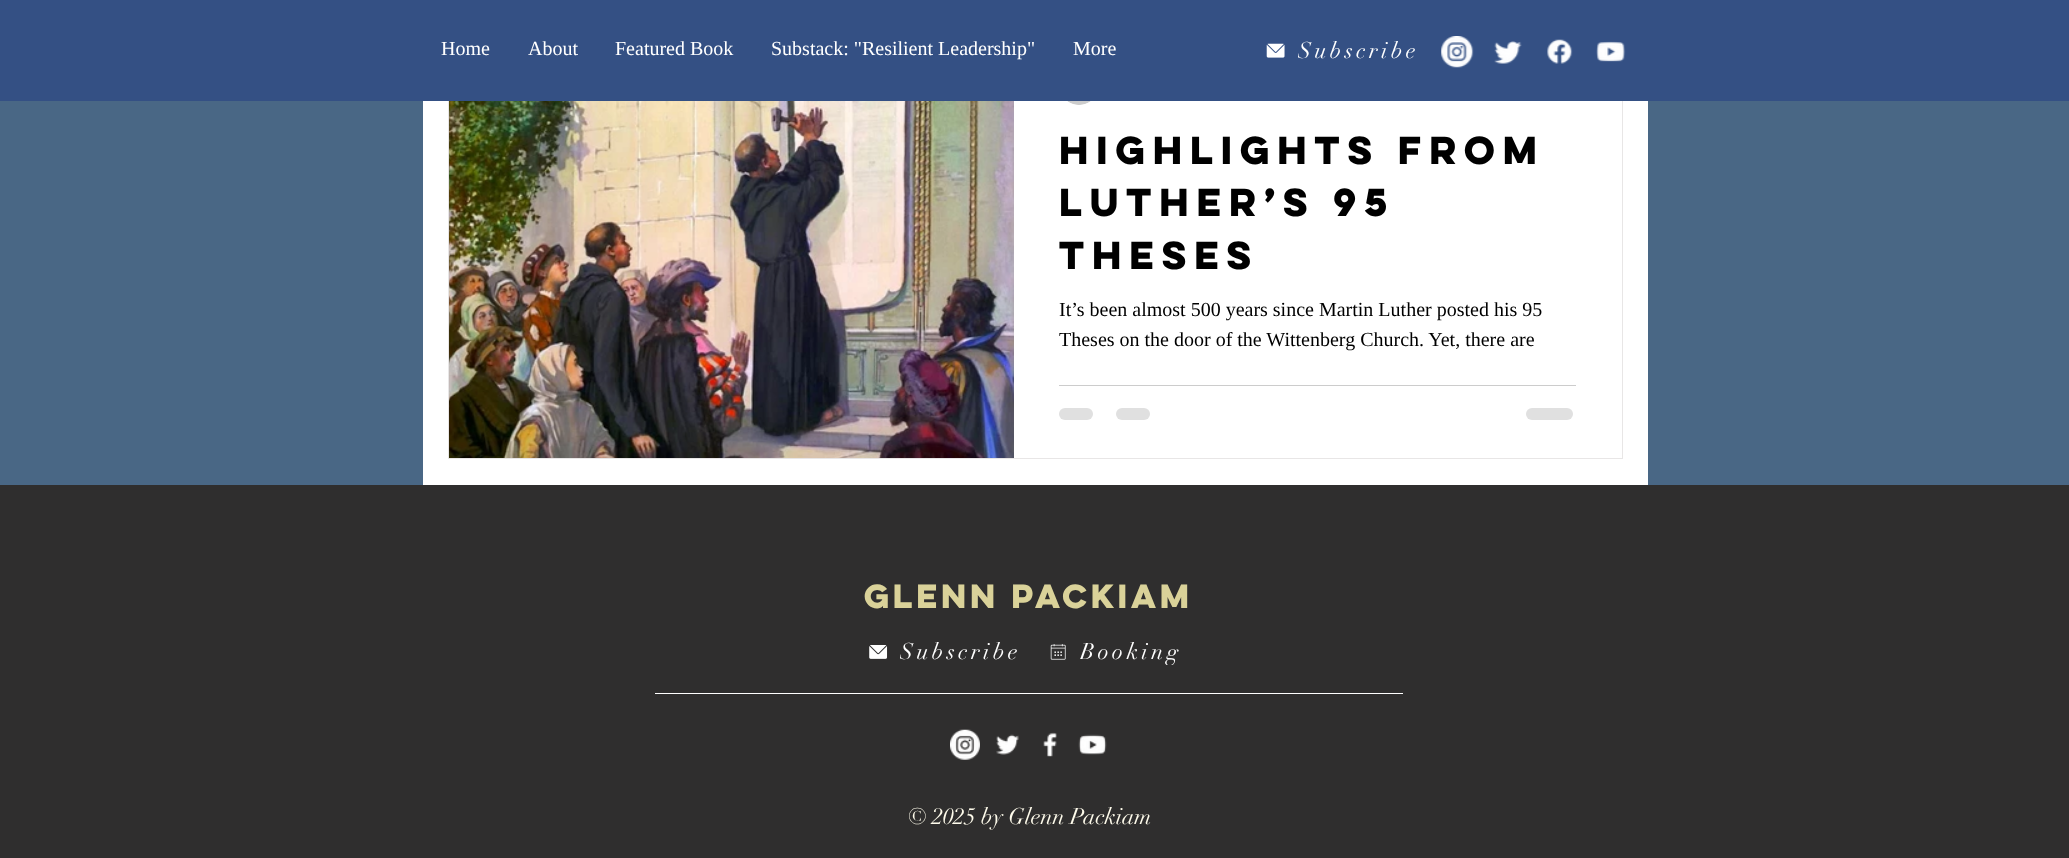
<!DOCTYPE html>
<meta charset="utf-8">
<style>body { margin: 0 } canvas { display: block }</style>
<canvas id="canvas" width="2069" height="858"></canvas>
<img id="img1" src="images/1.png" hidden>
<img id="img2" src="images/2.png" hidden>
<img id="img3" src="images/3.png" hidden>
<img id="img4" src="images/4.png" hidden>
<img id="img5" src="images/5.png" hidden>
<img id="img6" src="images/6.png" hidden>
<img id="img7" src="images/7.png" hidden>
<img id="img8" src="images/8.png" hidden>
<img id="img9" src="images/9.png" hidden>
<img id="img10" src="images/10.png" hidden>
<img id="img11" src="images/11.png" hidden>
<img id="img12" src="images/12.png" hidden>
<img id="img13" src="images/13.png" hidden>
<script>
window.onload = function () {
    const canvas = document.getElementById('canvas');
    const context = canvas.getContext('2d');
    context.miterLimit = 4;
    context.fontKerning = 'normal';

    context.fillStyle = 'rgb(73, 103, 133)';
    context.fillRect(0, 0, 2069, 858);
    context.fillStyle = 'rgb(255, 255, 255)';
    context.fillRect(423, 101, 1225, 384);
    context.strokeStyle = 'rgb(232, 230, 230)';
    context.strokeRect(448.5, 33.5, 1174, 425);
    context.fillStyle = 'rgb(52, 80, 132)';
    context.fillRect(0, 0, 2069, 101);
    context.drawImage(document.getElementById('img1'), 1266, 43, 19, 15);
    context.drawImage(document.getElementById('img2'), 1441, 36, 33, 32);
    context.drawImage(document.getElementById('img3'), 1494, 41, 28, 23);
    context.drawImage(document.getElementById('img4'), 1547, 39, 26, 25);
    context.drawImage(document.getElementById('img5'), 1596, 41, 30, 21);
    context.drawImage(document.getElementById('img6'), 449, 101, 565, 357);
    context.drawImage(document.getElementById('img7'), 1067, 101, 24, 4);
    context.fillStyle = 'rgb(204, 204, 204)';
    context.fillRect(1059, 385, 517, 1);
    context.fillStyle = 'rgb(224, 224, 224)';
    context.beginPath();
    context.roundRect(1059, 408, 34, 12, 6);
    context.fill();
    context.beginPath();
    context.roundRect(1116, 408, 34, 12, 6);
    context.fill();
    context.beginPath();
    context.roundRect(1526, 408, 47, 12, 6);
    context.fill();
    context.fillStyle = 'rgb(47, 46, 46)';
    context.fillRect(0, 485, 2069, 373);
    context.fillStyle = 'rgb(255, 255, 255)';
    context.fillRect(655, 693, 748, 1);
    context.drawImage(document.getElementById('img8'), 950, 729, 30, 31);
    context.drawImage(document.getElementById('img9'), 996, 734, 23, 21);
    context.drawImage(document.getElementById('img10'), 1043, 732, 14, 25);
    context.drawImage(document.getElementById('img11'), 1078, 734, 29, 21);
    context.drawImage(document.getElementById('img12'), 869, 645, 19, 14);
    context.drawImage(document.getElementById('img13'), 1050, 644, 16, 16);
    context.font = '20px Liberation Serif';
    context.fillText('Home', 441, 55);
    context.fillText('About', 528, 55);
    context.fillText('Featured Book', 615, 55);
    context.fillText('Substack: "Resilient Leadership"', 771, 55);
    context.fillText('More', 1073, 55);
    context.save();
    context.beginPath();
    context.rect(1298, 38, 121, 27);
    context.clip();
    context.letterSpacing = '3.4px';
    context.font = '22.5px didot';
    context.fillText('Subscribe', 1298, 58);
    context.restore();
    context.font = 'bold 35px "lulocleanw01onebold"';
    context.fillStyle = 'rgb(0, 0, 0)';
    context.fillText('Highlights from', 1059, 164);
    context.fillText('Luther’s 95', 1059, 216);
    context.fillText('Theses', 1059, 269);
    context.font = '20px Liberation Serif';
    context.fillText('It’s been almost 500 years since Martin Luther posted his 95', 1059, 316);
    context.fillText('Theses on the door of the Wittenberg Church. Yet, there are', 1059, 346);
    context.letterSpacing = '-3px';
    context.font = 'bold 30px "lulocleanw01onebold"';
    context.fillStyle = 'rgb(218, 210, 153)';
    context.fillText('Glenn Packiam', 864, 608);
    context.letterSpacing = '0px';
    context.font = '22.5px didot';
    context.fillStyle = 'rgb(255, 252, 236)';
    context.fillText('© 2025 by Glenn Packiam', 908, 824);
    context.save();
    context.beginPath();
    context.rect(900, 638, 121, 27);
    context.clip();
    context.letterSpacing = '3.4px';
    context.fillStyle = 'rgb(255, 255, 255)';
    context.fillText('Subscribe', 900, 659);
    context.restore();
    context.save();
    context.beginPath();
    context.rect(1080, 638, 101, 27);
    context.clip();
    context.letterSpacing = '3.4px';
    context.fillStyle = 'rgb(255, 255, 255)';
    context.fillText('Booking', 1080, 659);
    context.restore();
};
</script>
